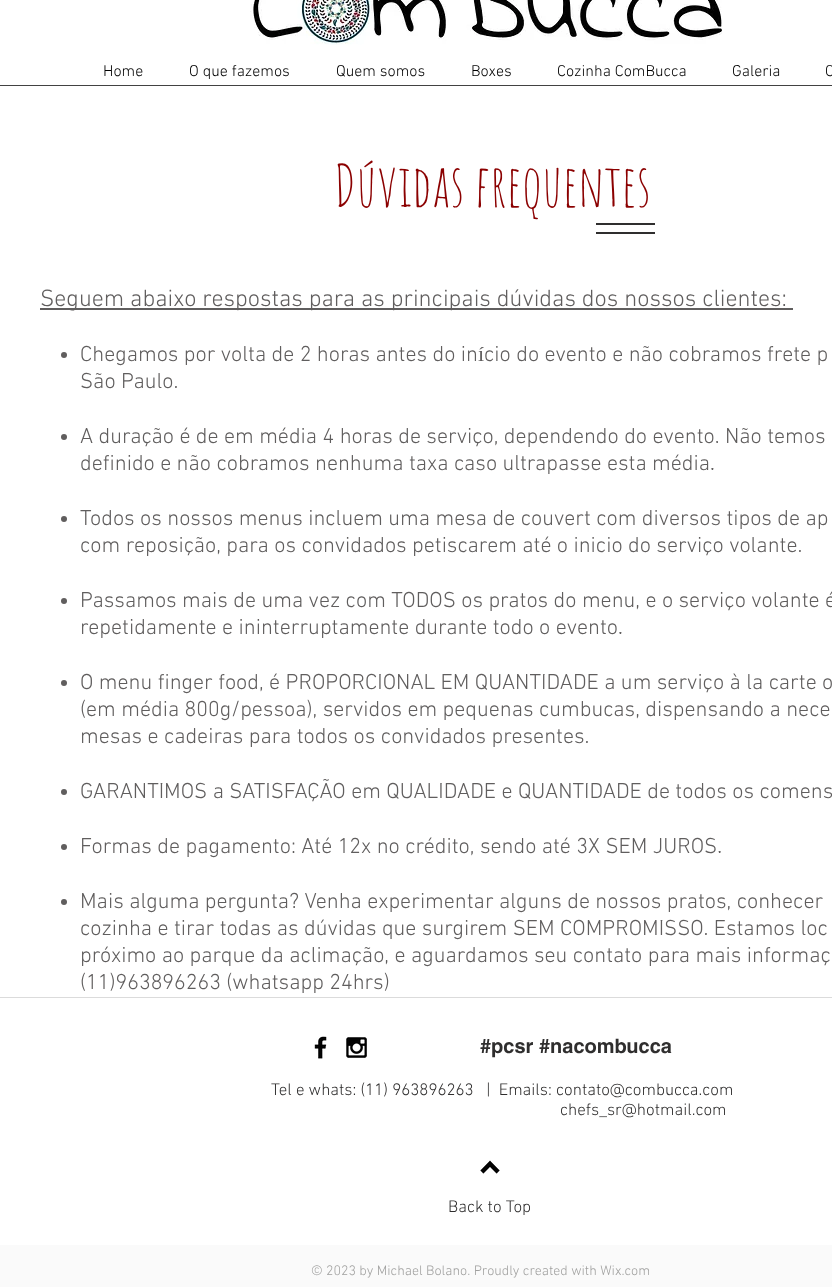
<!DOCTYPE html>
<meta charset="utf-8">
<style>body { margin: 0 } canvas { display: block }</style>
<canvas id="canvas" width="832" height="1287"></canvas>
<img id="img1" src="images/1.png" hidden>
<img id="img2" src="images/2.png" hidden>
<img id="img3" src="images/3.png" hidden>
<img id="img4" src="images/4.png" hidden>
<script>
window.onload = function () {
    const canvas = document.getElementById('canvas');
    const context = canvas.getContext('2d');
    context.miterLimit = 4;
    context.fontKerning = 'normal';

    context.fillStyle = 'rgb(255, 255, 255)';
    context.fillRect(0, 0, 832, 1287);
    context.drawImage(document.getElementById('img1'), 250, 0, 472, 45);
    context.fillStyle = 'rgb(66, 66, 66)';
    context.fillRect(0, 85, 832, 1);
    context.fillStyle = 'rgb(47, 46, 46)';
    context.fillRect(596, 223, 59, 2);
    context.fillRect(596, 232, 59, 2);
    context.fillStyle = 'rgb(96, 94, 94)';
    context.fillRect(40, 308, 753, 2);
    context.beginPath();
    context.arc(64, 355, 3, 0, 2 * Math.PI);
    context.fill();
    context.beginPath();
    context.arc(64, 437, 3, 0, 2 * Math.PI);
    context.fill();
    context.beginPath();
    context.arc(64, 519, 3, 0, 2 * Math.PI);
    context.fill();
    context.beginPath();
    context.arc(64, 601, 3, 0, 2 * Math.PI);
    context.fill();
    context.beginPath();
    context.arc(64, 683, 3, 0, 2 * Math.PI);
    context.fill();
    context.beginPath();
    context.arc(64, 792, 3, 0, 2 * Math.PI);
    context.fill();
    context.beginPath();
    context.arc(64, 847, 3, 0, 2 * Math.PI);
    context.fill();
    context.beginPath();
    context.arc(64, 902, 3, 0, 2 * Math.PI);
    context.fill();
    context.fillStyle = 'rgb(219, 219, 219)';
    context.fillRect(0, 997, 832, 1);
    context.drawImage(document.getElementById('img2'), 314, 1036, 13, 23);
    context.drawImage(document.getElementById('img3'), 346, 1037, 21, 21);
    context.drawImage(document.getElementById('img4'), 480, 1160, 20, 14);
    context.fillStyle = 'rgb(250, 250, 250)';
    context.fillRect(0, 1245, 832, 42);
    context.font = '300 16px "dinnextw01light"';
    context.fillStyle = 'rgb(0, 0, 0)';
    context.fillText('Home', 103, 76);
    context.fillText('O que fazemos', 189, 76);
    context.fillText('Quem somos', 336, 76);
    context.fillText('Boxes', 471, 76);
    context.fillText('Cozinha ComBucca', 557, 76);
    context.fillText('Galeria', 732, 76);
    context.fillText('C', 825, 76);
    context.font = '58px Amatic SC';
    context.fillStyle = 'rgb(139, 0, 0)';
    context.fillText('Dúvidas frequentes', 334, 207);
    context.font = '300 24px "dinnextw01light"';
    context.fillStyle = 'rgb(96, 94, 94)';
    context.fillText('Seguem abaixo respostas para as principais dúvidas dos nossos clientes:', 40, 306);
    context.font = '300 22px "dinnextw01light"';
    context.fillText('Chegamos por volta de 2 horas antes do início do evento e não cobramos frete p', 80, 361);
    context.fillText('São Paulo.', 80, 388);
    context.fillText('A duração é de em média 4 horas de serviço, dependendo do evento. Não temos', 80, 443);
    context.fillText('definido e não cobramos nenhuma taxa caso ultrapasse esta média.', 80, 470);
    context.fillText('Todos os nossos menus incluem uma mesa de couvert com diversos tipos de ap', 80, 525);
    context.fillText('com reposição, para os convidados petiscarem até o inicio do serviço volante.', 80, 552);
    context.fillText('Passamos mais de uma vez com TODOS os pratos do menu, e o serviço volante é', 80, 607);
    context.fillText('repetidamente e ininterruptamente durante todo o evento.', 80, 634);
    context.fillText('O menu finger food, é PROPORCIONAL EM QUANTIDADE a um serviço à la carte o', 80, 689);
    context.fillText('(em média 800g/pessoa), servidos em pequenas cumbucas, dispensando a nece', 80, 716);
    context.fillText('mesas e cadeiras para todos os convidados presentes.', 80, 743);
    context.fillText('GARANTIMOS a SATISFAÇÃO em QUALIDADE e QUANTIDADE de todos os comens', 80, 798);
    context.fillText('Formas de pagamento: Até 12x no crédito, sendo até 3X SEM JUROS.', 80, 853);
    context.fillText('Mais alguma pergunta? Venha experimentar alguns de nossos pratos, conhecer', 80, 908);
    context.fillText('cozinha e tirar todas as dúvidas que surgirem SEM COMPROMISSO. Estamos loc', 80, 935);
    context.fillText('próximo ao parque da aclimação, e aguardamos seu contato para mais informaç', 80, 962);
    context.fillText('(11)963896263 (whatsapp 24hrs)', 80, 989);
    context.font = 'bold 20px helvetica';
    context.fillStyle = 'rgb(47, 46, 46)';
    context.fillText('#pcsr #nacombucca', 480, 1053);
    context.font = '300 17px "dinnextw01light"';
    context.fillText('Tel e whats: (11) 963896263   |  Emails: contato@combucca.com', 271, 1095);
    context.fillText('chefs_sr@hotmail.com', 560, 1115);
    context.fillText('Back to Top', 448, 1212);
    context.font = '300 14px "dinnextw01light"';
    context.fillStyle = 'rgb(160, 160, 159)';
    context.fillText('© 2023 by Michael Bolano. Proudly created with Wix.com', 311, 1275);
};
</script>
